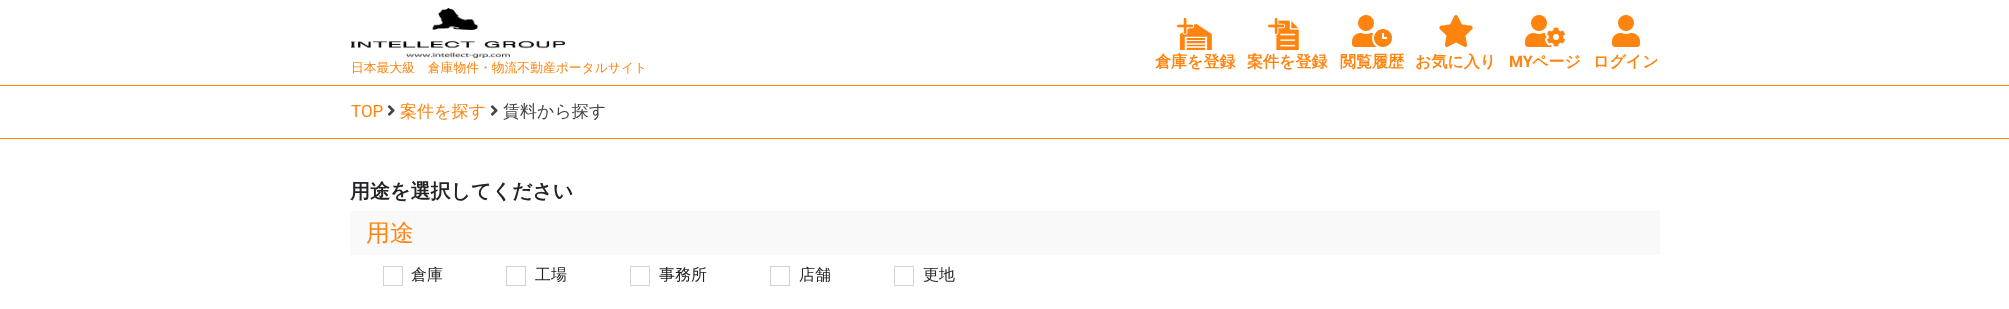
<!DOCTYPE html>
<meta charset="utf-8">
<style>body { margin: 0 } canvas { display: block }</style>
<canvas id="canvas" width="2009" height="309"></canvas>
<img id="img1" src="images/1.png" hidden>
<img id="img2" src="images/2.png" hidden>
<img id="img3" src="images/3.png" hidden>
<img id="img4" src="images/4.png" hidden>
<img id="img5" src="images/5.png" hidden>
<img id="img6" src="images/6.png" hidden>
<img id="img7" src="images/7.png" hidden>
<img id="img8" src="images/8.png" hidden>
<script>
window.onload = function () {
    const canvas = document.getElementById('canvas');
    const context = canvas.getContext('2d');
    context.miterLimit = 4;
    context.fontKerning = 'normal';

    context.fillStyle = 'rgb(255, 255, 255)';
    context.fillRect(0, 0, 2009, 309);
    context.fillStyle = 'rgb(255, 132, 15)';
    context.fillRect(0, 138, 2009, 1);
    context.drawImage(document.getElementById('img1'), 351, 8, 214, 50);
    context.drawImage(document.getElementById('img2'), 1176, 17, 36, 33);
    context.drawImage(document.getElementById('img3'), 1267, 17, 32, 33);
    context.drawImage(document.getElementById('img4'), 1352, 15, 40, 32);
    context.drawImage(document.getElementById('img5'), 1439, 15, 34, 32);
    context.drawImage(document.getElementById('img6'), 1525, 15, 40, 32);
    context.drawImage(document.getElementById('img7'), 1612, 15, 28, 32);
    context.fillRect(0, 85, 2009, 1);
    context.drawImage(document.getElementById('img8'), 387, 105, 8, 11);
    context.drawImage(document.getElementById('img8'), 490, 105, 8, 11);
    context.fillStyle = 'rgb(249, 249, 249)';
    context.fillRect(350, 211, 1310, 44);
    context.strokeStyle = 'rgb(206, 212, 218)';
    context.strokeRect(383.5, 266.5, 19, 19);
    context.strokeRect(506.5, 266.5, 19, 19);
    context.strokeRect(630.5, 266.5, 19, 19);
    context.strokeRect(770.5, 266.5, 19, 19);
    context.strokeRect(894.5, 266.5, 19, 19);
    context.font = '500 12.8px WenQuanYi Zen Hei';
    context.fillStyle = 'rgb(255, 132, 15)';
    context.fillText('日本最大級　倉庫物件・物流不動産ポータルサイト', 351, 72);
    context.font = 'bold 16px WenQuanYi Zen Hei';
    context.fillText('倉庫を登録', 1155, 67);
    context.fillText('案件を登録', 1247, 67);
    context.fillText('閲覧履歴', 1340, 67);
    context.fillText('お気に入り', 1415, 67);
    context.font = 'bold 16px Roboto';
    context.fillText('MY', 1509, 67);
    context.font = 'bold 16px WenQuanYi Zen Hei';
    context.fillText('ページ', 1532, 67);
    context.fillText('ログイン', 1593, 67);
    context.font = '17px Roboto';
    context.fillText('TOP', 351, 117);
    context.font = '500 17px WenQuanYi Zen Hei';
    context.fillText('案件を探す', 400, 117);
    context.fillStyle = 'rgb(68, 68, 68)';
    context.fillText('賃料から探す', 503, 117);
    context.font = 'bold 20px WenQuanYi Zen Hei';
    context.fillStyle = 'rgb(33, 37, 41)';
    context.fillText('用途を選択してください', 350, 198);
    context.font = '500 24px WenQuanYi Zen Hei';
    context.fillStyle = 'rgb(255, 132, 15)';
    context.fillText('用途', 366, 241);
    context.font = '500 16px WenQuanYi Zen Hei';
    context.fillStyle = 'rgb(33, 37, 41)';
    context.fillText('倉庫', 411, 280);
    context.fillText('工場', 535, 280);
    context.fillText('事務所', 659, 280);
    context.fillText('店舗', 799, 280);
    context.fillText('更地', 923, 280);
};
</script>
